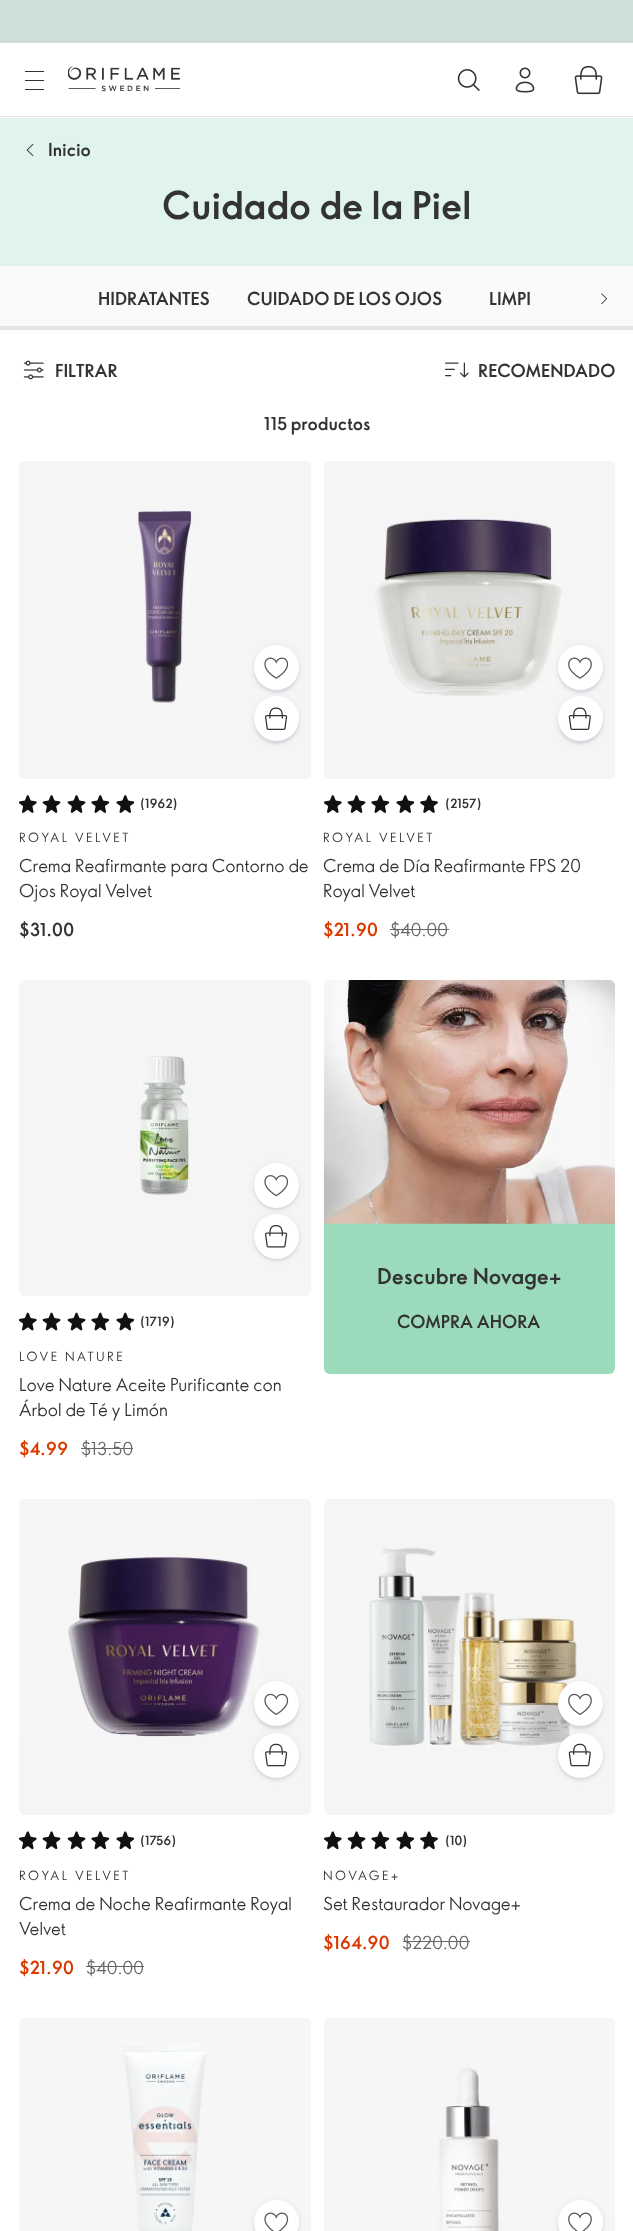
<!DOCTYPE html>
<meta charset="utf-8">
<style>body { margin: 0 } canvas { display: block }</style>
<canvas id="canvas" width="633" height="2231"></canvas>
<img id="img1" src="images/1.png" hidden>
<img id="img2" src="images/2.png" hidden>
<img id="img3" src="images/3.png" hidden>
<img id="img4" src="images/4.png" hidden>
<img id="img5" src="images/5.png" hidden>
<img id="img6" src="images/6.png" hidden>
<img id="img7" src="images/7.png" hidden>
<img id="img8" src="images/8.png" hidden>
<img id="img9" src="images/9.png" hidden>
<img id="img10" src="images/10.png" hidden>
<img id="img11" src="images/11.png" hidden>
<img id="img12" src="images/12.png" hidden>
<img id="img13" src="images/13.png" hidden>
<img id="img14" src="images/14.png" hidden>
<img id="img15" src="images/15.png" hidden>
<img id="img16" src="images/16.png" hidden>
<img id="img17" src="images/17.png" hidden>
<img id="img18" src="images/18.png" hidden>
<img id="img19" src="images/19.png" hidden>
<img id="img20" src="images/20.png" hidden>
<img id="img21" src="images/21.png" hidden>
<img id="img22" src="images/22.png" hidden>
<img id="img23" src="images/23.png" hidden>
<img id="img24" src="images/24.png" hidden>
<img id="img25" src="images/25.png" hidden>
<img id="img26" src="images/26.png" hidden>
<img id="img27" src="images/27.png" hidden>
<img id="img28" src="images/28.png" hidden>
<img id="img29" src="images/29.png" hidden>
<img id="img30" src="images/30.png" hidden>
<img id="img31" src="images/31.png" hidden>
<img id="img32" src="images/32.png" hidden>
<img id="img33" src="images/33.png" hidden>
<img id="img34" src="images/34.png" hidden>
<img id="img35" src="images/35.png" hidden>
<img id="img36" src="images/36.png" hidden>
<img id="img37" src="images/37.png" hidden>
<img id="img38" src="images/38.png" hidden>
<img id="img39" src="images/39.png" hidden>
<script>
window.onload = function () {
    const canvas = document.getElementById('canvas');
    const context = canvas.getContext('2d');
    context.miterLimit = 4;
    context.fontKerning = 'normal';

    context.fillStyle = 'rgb(255, 255, 255)';
    context.fillRect(0, 0, 633, 2231);
    context.fillStyle = 'rgb(229, 229, 229)';
    context.fillRect(0, 116, 633, 1);
    context.fillStyle = 'rgb(206, 223, 215)';
    context.fillRect(0, 0, 633, 43);
    context.fillStyle = 'rgb(51, 51, 51)';
    context.fillRect(25, 71, 19, 1);
    context.fillRect(25, 80, 19, 1);
    context.fillRect(25, 89, 19, 1);
    context.drawImage(document.getElementById('img1'), 68, 66, 112, 26);
    context.drawImage(document.getElementById('img2'), 457, 69, 23, 22);
    context.drawImage(document.getElementById('img3'), 515, 67, 20, 26);
    context.drawImage(document.getElementById('img4'), 574, 65, 29, 30);
    context.fillStyle = 'rgb(225, 244, 235)';
    context.fillRect(0, 118, 633, 148);
    context.drawImage(document.getElementById('img5'), 26, 144, 8, 12);
    context.fillStyle = 'rgb(250, 250, 250)';
    context.fillRect(0, 266, 633, 60);
    context.drawImage(document.getElementById('img6'), 601, 293, 6, 12);
    context.fillStyle = 'rgb(229, 229, 229)';
    context.fillRect(0, 326, 633, 4);
    context.drawImage(document.getElementById('img7'), 23, 360, 21, 20);
    context.drawImage(document.getElementById('img8'), 445, 362, 24, 16);
    context.fillStyle = 'rgb(245, 245, 245)';
    context.beginPath();
    context.roundRect(19, 461, 292, 293, [6, 6, 0, 0]);
    context.fill();
    context.drawImage(document.getElementById('img9'), 138, 510, 55, 193);
    context.fillStyle = 'rgba(0, 0, 66, 0.08)';
    context.filter = 'blur(3px)';
    context.beginPath();
    context.roundRect(254, 698, 45, 45, 22.5);
    context.fill();
    context.filter = 'none';
    context.filter = 'blur(1px)';
    context.beginPath();
    context.roundRect(254, 699, 45, 45, 22.5);
    context.fill();
    context.filter = 'none';
    context.fillStyle = 'rgb(255, 255, 255)';
    context.beginPath();
    context.arc(276.5, 718.5, 22.5, 0, 2 * Math.PI);
    context.fill();
    context.fillStyle = 'rgba(0, 0, 66, 0.08)';
    context.filter = 'blur(3px)';
    context.beginPath();
    context.roundRect(254, 646, 45, 45, 22.5);
    context.fill();
    context.filter = 'none';
    context.filter = 'blur(1px)';
    context.beginPath();
    context.roundRect(254, 648, 45, 45, 22.5);
    context.fill();
    context.filter = 'none';
    context.fillStyle = 'rgb(255, 255, 255)';
    context.beginPath();
    context.arc(276.5, 667.5, 22.5, 0, 2 * Math.PI);
    context.fill();
    context.drawImage(document.getElementById('img10'), 264, 657, 25, 22);
    context.drawImage(document.getElementById('img11'), 265, 707, 23, 23);
    context.fillStyle = 'rgb(245, 245, 245)';
    context.beginPath();
    context.roundRect(19, 754, 292, 25, [0, 0, 6, 6]);
    context.fill();
    context.drawImage(document.getElementById('img12'), 19, 795, 18, 18);
    context.drawImage(document.getElementById('img13'), 42, 795, 19, 18);
    context.drawImage(document.getElementById('img13'), 67, 795, 19, 18);
    context.drawImage(document.getElementById('img14'), 91, 795, 19, 18);
    context.drawImage(document.getElementById('img14'), 116, 795, 19, 18);
    context.beginPath();
    context.roundRect(324, 461, 291, 293, [6, 6, 0, 0]);
    context.fill();
    context.drawImage(document.getElementById('img15'), 375, 518, 187, 178);
    context.fillStyle = 'rgba(0, 0, 66, 0.08)';
    context.filter = 'blur(3px)';
    context.beginPath();
    context.roundRect(558, 698, 45, 45, 22.5);
    context.fill();
    context.filter = 'none';
    context.filter = 'blur(1px)';
    context.beginPath();
    context.roundRect(558, 699, 45, 45, 22.5);
    context.fill();
    context.filter = 'none';
    context.fillStyle = 'rgb(255, 255, 255)';
    context.beginPath();
    context.arc(580.5, 718.5, 22.5, 0, 2 * Math.PI);
    context.fill();
    context.fillStyle = 'rgba(0, 0, 66, 0.08)';
    context.filter = 'blur(3px)';
    context.beginPath();
    context.roundRect(558, 646, 45, 45, 22.5);
    context.fill();
    context.filter = 'none';
    context.filter = 'blur(1px)';
    context.beginPath();
    context.roundRect(558, 648, 45, 45, 22.5);
    context.fill();
    context.filter = 'none';
    context.fillStyle = 'rgb(255, 255, 255)';
    context.beginPath();
    context.arc(580.5, 667.5, 22.5, 0, 2 * Math.PI);
    context.fill();
    context.drawImage(document.getElementById('img16'), 568, 657, 24, 22);
    context.drawImage(document.getElementById('img17'), 568, 707, 23, 23);
    context.fillStyle = 'rgb(245, 245, 245)';
    context.beginPath();
    context.roundRect(324, 754, 291, 25, [0, 0, 6, 6]);
    context.fill();
    context.drawImage(document.getElementById('img12'), 324, 795, 18, 18);
    context.drawImage(document.getElementById('img13'), 347, 795, 19, 18);
    context.drawImage(document.getElementById('img14'), 371, 795, 19, 18);
    context.drawImage(document.getElementById('img14'), 396, 795, 19, 18);
    context.drawImage(document.getElementById('img18'), 420, 795, 18, 18);
    context.fillStyle = 'rgb(102, 102, 102)';
    context.fillRect(390, 929, 59, 1);
    context.fillStyle = 'rgb(156, 218, 188)';
    context.beginPath();
    context.roundRect(324, 980, 291, 394, 6);
    context.fill();
    context.drawImage(document.getElementById('img19'), 323, 980, 292, 244);
    context.fillStyle = 'rgb(245, 245, 245)';
    context.beginPath();
    context.roundRect(19, 980, 292, 291, [6, 6, 0, 0]);
    context.fill();
    context.drawImage(document.getElementById('img20'), 139, 1056, 51, 139);
    context.fillStyle = 'rgba(0, 0, 66, 0.08)';
    context.filter = 'blur(3px)';
    context.beginPath();
    context.roundRect(254, 1215, 45, 45, 22.5);
    context.fill();
    context.filter = 'none';
    context.filter = 'blur(1px)';
    context.beginPath();
    context.roundRect(254, 1216, 45, 45, 22.5);
    context.fill();
    context.filter = 'none';
    context.fillStyle = 'rgb(255, 255, 255)';
    context.beginPath();
    context.arc(276.5, 1236.5, 22.5, 0, 2 * Math.PI);
    context.fill();
    context.fillStyle = 'rgba(0, 0, 66, 0.08)';
    context.filter = 'blur(3px)';
    context.beginPath();
    context.roundRect(254, 1164, 45, 45, 22.5);
    context.fill();
    context.filter = 'none';
    context.filter = 'blur(1px)';
    context.beginPath();
    context.roundRect(254, 1165, 45, 45, 22.5);
    context.fill();
    context.filter = 'none';
    context.fillStyle = 'rgb(255, 255, 255)';
    context.beginPath();
    context.arc(276.5, 1185.5, 22.5, 0, 2 * Math.PI);
    context.fill();
    context.drawImage(document.getElementById('img21'), 264, 1175, 25, 22);
    context.drawImage(document.getElementById('img22'), 265, 1225, 23, 23);
    context.fillStyle = 'rgb(245, 245, 245)';
    context.beginPath();
    context.roundRect(19, 1271, 292, 25, [0, 0, 6, 6]);
    context.fill();
    context.drawImage(document.getElementById('img23'), 19, 1312, 18, 19);
    context.drawImage(document.getElementById('img24'), 42, 1312, 19, 19);
    context.drawImage(document.getElementById('img24'), 67, 1312, 19, 19);
    context.drawImage(document.getElementById('img25'), 91, 1312, 19, 19);
    context.drawImage(document.getElementById('img25'), 116, 1312, 19, 19);
    context.fillStyle = 'rgb(102, 102, 102)';
    context.fillRect(81, 1448, 52, 1);
    context.fillStyle = 'rgb(245, 245, 245)';
    context.beginPath();
    context.roundRect(19, 1499, 292, 291, [6, 6, 0, 0]);
    context.fill();
    context.drawImage(document.getElementById('img26'), 19, 1502, 241, 235);
    context.fillStyle = 'rgba(0, 0, 66, 0.08)';
    context.filter = 'blur(3px)';
    context.beginPath();
    context.roundRect(254, 1734, 45, 45, 22.5);
    context.fill();
    context.filter = 'none';
    context.filter = 'blur(1px)';
    context.beginPath();
    context.roundRect(254, 1735, 45, 45, 22.5);
    context.fill();
    context.filter = 'none';
    context.fillStyle = 'rgb(255, 255, 255)';
    context.beginPath();
    context.arc(276.5, 1755.5, 22.5, 0, 2 * Math.PI);
    context.fill();
    context.fillStyle = 'rgba(0, 0, 66, 0.08)';
    context.filter = 'blur(3px)';
    context.beginPath();
    context.roundRect(254, 1683, 45, 45, 22.5);
    context.fill();
    context.filter = 'none';
    context.filter = 'blur(1px)';
    context.beginPath();
    context.roundRect(254, 1684, 45, 45, 22.5);
    context.fill();
    context.filter = 'none';
    context.fillStyle = 'rgb(255, 255, 255)';
    context.beginPath();
    context.arc(276.5, 1703.5, 22.5, 0, 2 * Math.PI);
    context.fill();
    context.drawImage(document.getElementById('img27'), 264, 1693, 25, 22);
    context.drawImage(document.getElementById('img28'), 265, 1743, 23, 24);
    context.fillStyle = 'rgb(245, 245, 245)';
    context.beginPath();
    context.roundRect(19, 1790, 292, 25, [0, 0, 6, 6]);
    context.fill();
    context.drawImage(document.getElementById('img29'), 19, 1831, 18, 19);
    context.drawImage(document.getElementById('img30'), 42, 1831, 19, 19);
    context.drawImage(document.getElementById('img30'), 67, 1831, 19, 19);
    context.drawImage(document.getElementById('img31'), 91, 1831, 19, 19);
    context.drawImage(document.getElementById('img31'), 116, 1831, 19, 19);
    context.fillStyle = 'rgb(102, 102, 102)';
    context.fillRect(86, 1966, 58, 1);
    context.fillStyle = 'rgb(245, 245, 245)';
    context.beginPath();
    context.roundRect(324, 1499, 291, 291, [6, 6, 0, 0]);
    context.fill();
    context.drawImage(document.getElementById('img32'), 369, 1547, 208, 200);
    context.fillStyle = 'rgba(0, 0, 66, 0.08)';
    context.filter = 'blur(3px)';
    context.beginPath();
    context.roundRect(558, 1734, 45, 45, 22.5);
    context.fill();
    context.filter = 'none';
    context.filter = 'blur(1px)';
    context.beginPath();
    context.roundRect(558, 1735, 45, 45, 22.5);
    context.fill();
    context.filter = 'none';
    context.fillStyle = 'rgb(255, 255, 255)';
    context.beginPath();
    context.arc(580.5, 1755.5, 22.5, 0, 2 * Math.PI);
    context.fill();
    context.fillStyle = 'rgba(0, 0, 66, 0.08)';
    context.filter = 'blur(3px)';
    context.beginPath();
    context.roundRect(558, 1683, 45, 45, 22.5);
    context.fill();
    context.filter = 'none';
    context.filter = 'blur(1px)';
    context.beginPath();
    context.roundRect(558, 1684, 45, 45, 22.5);
    context.fill();
    context.filter = 'none';
    context.fillStyle = 'rgb(255, 255, 255)';
    context.beginPath();
    context.arc(580.5, 1703.5, 22.5, 0, 2 * Math.PI);
    context.fill();
    context.drawImage(document.getElementById('img33'), 568, 1693, 24, 22);
    context.drawImage(document.getElementById('img34'), 568, 1743, 23, 24);
    context.fillStyle = 'rgb(245, 245, 245)';
    context.beginPath();
    context.roundRect(324, 1790, 291, 25, [0, 0, 6, 6]);
    context.fill();
    context.drawImage(document.getElementById('img29'), 324, 1831, 18, 19);
    context.drawImage(document.getElementById('img30'), 347, 1831, 19, 19);
    context.drawImage(document.getElementById('img31'), 371, 1831, 19, 19);
    context.drawImage(document.getElementById('img31'), 396, 1831, 19, 19);
    context.drawImage(document.getElementById('img35'), 420, 1831, 18, 19);
    context.fillStyle = 'rgb(102, 102, 102)';
    context.fillRect(403, 1941, 67, 1);
    context.fillStyle = 'rgb(245, 245, 245)';
    context.beginPath();
    context.moveTo(25, 2018);
    context.lineTo(305, 2018);
    context.bezierCurveTo(308.5, 2018, 311, 2020.5, 311, 2024);
    context.lineTo(311, 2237);
    context.lineTo(19, 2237);
    context.lineTo(19, 2024);
    context.bezierCurveTo(19, 2020.5, 21.5, 2018, 25, 2018);
    context.closePath();
    context.fill();
    context.drawImage(document.getElementById('img36'), 19, 2018, 291, 213);
    context.fillStyle = 'rgba(0, 0, 66, 0.08)';
    context.filter = 'blur(3px)';
    context.beginPath();
    context.roundRect(254, 2201, 45, 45, 22.5);
    context.fill();
    context.filter = 'none';
    context.filter = 'blur(1px)';
    context.beginPath();
    context.roundRect(254, 2203, 45, 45, 22.5);
    context.fill();
    context.filter = 'none';
    context.fillStyle = 'rgb(255, 255, 255)';
    context.beginPath();
    context.arc(276.5, 2222.5, 22.5, 0, 2 * Math.PI);
    context.fill();
    context.drawImage(document.getElementById('img37'), 264, 2212, 25, 19);
    context.fillStyle = 'rgb(245, 245, 245)';
    context.beginPath();
    context.moveTo(330, 2018);
    context.lineTo(609, 2018);
    context.bezierCurveTo(612.5, 2018, 615, 2020.5, 615, 2024);
    context.lineTo(615, 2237);
    context.lineTo(324, 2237);
    context.lineTo(324, 2024);
    context.bezierCurveTo(324, 2020.5, 326.5, 2018, 330, 2018);
    context.closePath();
    context.fill();
    context.drawImage(document.getElementById('img38'), 325, 2018, 289, 213);
    context.fillStyle = 'rgba(0, 0, 66, 0.08)';
    context.filter = 'blur(3px)';
    context.beginPath();
    context.roundRect(558, 2201, 45, 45, 22.5);
    context.fill();
    context.filter = 'none';
    context.filter = 'blur(1px)';
    context.beginPath();
    context.roundRect(558, 2203, 45, 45, 22.5);
    context.fill();
    context.filter = 'none';
    context.fillStyle = 'rgb(255, 255, 255)';
    context.beginPath();
    context.arc(580.5, 2222.5, 22.5, 0, 2 * Math.PI);
    context.fill();
    context.drawImage(document.getElementById('img39'), 568, 2212, 24, 19);
    context.font = 'bold 17.5px "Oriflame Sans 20"';
    context.fillStyle = 'rgb(51, 51, 51)';
    context.fillText('Inicio', 48, 156);
    context.font = 'bold 37.5px "Oriflame Sans 20"';
    context.fillText('Cuidado de la Piel', 162, 219);
    context.font = 'bold 17.5px "Oriflame Sans 20"';
    context.fillText('HIDRATANTES', 98, 305);
    context.fillText('CUIDADO DE LOS OJOS', 247, 305);
    context.fillText('LIMPI', 489, 305);
    context.fillText('FILTRAR', 55, 377);
    context.fillText('RECOMENDADO', 478, 377);
    context.fillText('115 productos', 264, 430);
    context.font = 'bold 12.5px "Oriflame Sans 20"';
    context.fillText('(1962)', 140, 808);
    context.letterSpacing = '2.5px';
    context.font = '12.5px "Oriflame Sans 20"';
    context.fillText('ROYAL VELVET', 19, 842);
    context.letterSpacing = '0px';
    context.font = '17.5px "Oriflame Sans 20"';
    context.fillText('Crema Reafirmante para Contorno de', 19, 872);
    context.fillText('Ojos Royal Velvet', 19, 897);
    context.font = 'bold 17.5px "Oriflame Sans 20"';
    context.fillText('$31.00', 19, 936);
    context.font = 'bold 12.5px "Oriflame Sans 20"';
    context.fillText('(2157)', 445, 808);
    context.letterSpacing = '2.5px';
    context.font = '12.5px "Oriflame Sans 20"';
    context.fillText('ROYAL VELVET', 323, 842);
    context.letterSpacing = '0px';
    context.font = '17.5px "Oriflame Sans 20"';
    context.fillText('Crema de Día Reafirmante FPS 20', 323, 872);
    context.fillText('Royal Velvet', 323, 897);
    context.font = 'bold 17.5px "Oriflame Sans 20"';
    context.fillStyle = 'rgb(218, 58, 0)';
    context.fillText('$21.90', 323, 936);
    context.font = '17.5px "Oriflame Sans 20"';
    context.fillStyle = 'rgb(102, 102, 102)';
    context.fillText('$40.00', 390, 936);
    context.font = 'bold 21.25px "Oriflame Sans 20"';
    context.fillStyle = 'rgb(51, 51, 51)';
    context.fillText('Descubre Novage+', 377, 1284);
    context.font = 'bold 17.5px "Oriflame Sans 20"';
    context.fillText('COMPRA AHORA', 397, 1328);
    context.font = 'bold 12.5px "Oriflame Sans 20"';
    context.fillText('(1719)', 140, 1326);
    context.letterSpacing = '2.5px';
    context.font = '12.5px "Oriflame Sans 20"';
    context.fillText('LOVE NATURE', 19, 1361);
    context.letterSpacing = '0px';
    context.font = '17.5px "Oriflame Sans 20"';
    context.fillText('Love Nature Aceite Purificante con', 19, 1391);
    context.fillText('Árbol de Té y Limón', 19, 1416);
    context.font = 'bold 17.5px "Oriflame Sans 20"';
    context.fillStyle = 'rgb(218, 58, 0)';
    context.fillText('$4.99', 19, 1455);
    context.font = '17.5px "Oriflame Sans 20"';
    context.fillStyle = 'rgb(102, 102, 102)';
    context.fillText('$13.50', 81, 1455);
    context.font = 'bold 12.5px "Oriflame Sans 20"';
    context.fillStyle = 'rgb(51, 51, 51)';
    context.fillText('(1756)', 140, 1845);
    context.letterSpacing = '2.5px';
    context.font = '12.5px "Oriflame Sans 20"';
    context.fillText('ROYAL VELVET', 19, 1880);
    context.letterSpacing = '0px';
    context.font = '17.5px "Oriflame Sans 20"';
    context.fillText('Crema de Noche Reafirmante Royal', 19, 1910);
    context.fillText('Velvet', 19, 1935);
    context.font = 'bold 17.5px "Oriflame Sans 20"';
    context.fillStyle = 'rgb(218, 58, 0)';
    context.fillText('$21.90', 19, 1974);
    context.font = '17.5px "Oriflame Sans 20"';
    context.fillStyle = 'rgb(102, 102, 102)';
    context.fillText('$40.00', 86, 1974);
    context.font = 'bold 12.5px "Oriflame Sans 20"';
    context.fillStyle = 'rgb(51, 51, 51)';
    context.fillText('(10)', 445, 1845);
    context.letterSpacing = '2.5px';
    context.font = '12.5px "Oriflame Sans 20"';
    context.fillText('NOVAGE+', 323, 1880);
    context.letterSpacing = '0px';
    context.font = '17.5px "Oriflame Sans 20"';
    context.fillText('Set Restaurador Novage+', 323, 1910);
    context.font = 'bold 17.5px "Oriflame Sans 20"';
    context.fillStyle = 'rgb(218, 58, 0)';
    context.fillText('$164.90', 323, 1949);
    context.font = '17.5px "Oriflame Sans 20"';
    context.fillStyle = 'rgb(102, 102, 102)';
    context.fillText('$220.00', 402, 1949);
};
</script>
